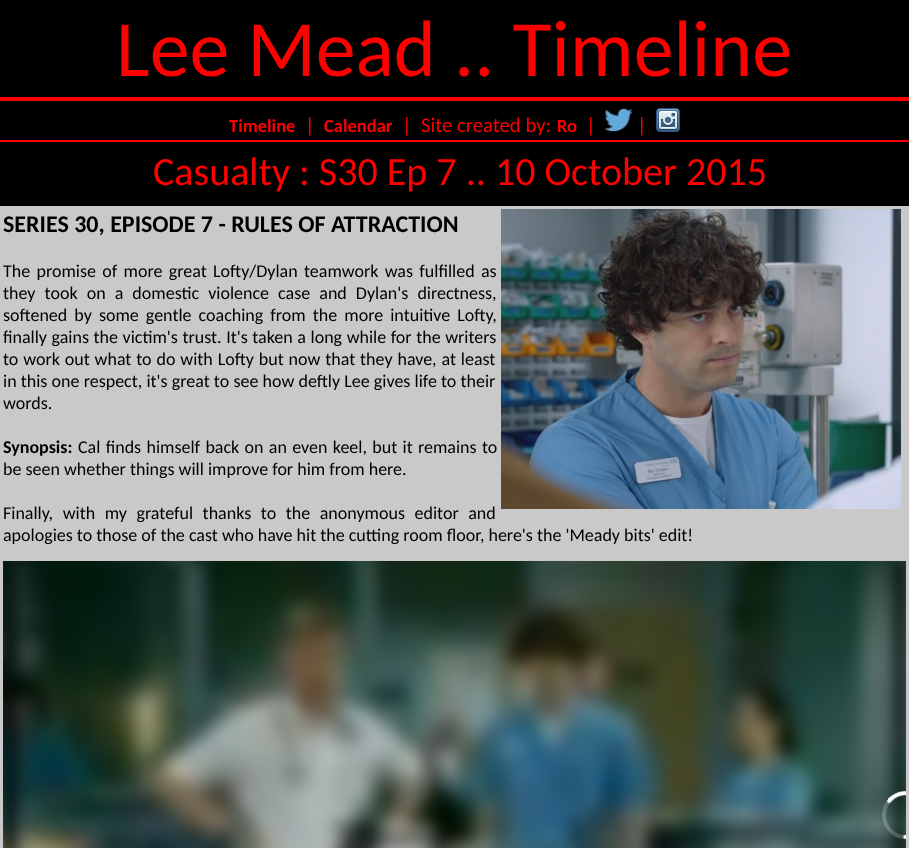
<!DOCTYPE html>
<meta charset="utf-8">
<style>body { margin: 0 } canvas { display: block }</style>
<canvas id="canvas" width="909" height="848"></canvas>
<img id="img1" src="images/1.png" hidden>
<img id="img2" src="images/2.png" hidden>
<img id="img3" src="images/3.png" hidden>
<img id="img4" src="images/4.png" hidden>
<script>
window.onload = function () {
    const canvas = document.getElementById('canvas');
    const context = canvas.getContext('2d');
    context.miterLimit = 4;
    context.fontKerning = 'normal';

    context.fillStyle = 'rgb(0, 0, 0)';
    context.fillRect(0, 0, 909, 848);
    context.fillStyle = 'rgb(255, 0, 0)';
    context.fillRect(0, 97, 909, 4);
    context.fillRect(0, 140, 909, 2);
    context.drawImage(document.getElementById('img1'), 604, 108, 29, 24);
    context.drawImage(document.getElementById('img2'), 656, 108, 24, 24);
    context.fillStyle = 'rgb(201, 201, 201)';
    context.fillRect(0, 206, 909, 642);
    context.drawImage(document.getElementById('img3'), 501, 209, 400, 300);
    context.drawImage(document.getElementById('img4'), 3, 561, 903, 287);
    context.font = '80px Carlito';
    context.fillStyle = 'rgb(255, 0, 0)';
    context.fillText('Lee Mead .. Timeline', 116, 76);
    context.font = 'bold 18.5px Carlito';
    context.fillText('Timeline', 229, 132);
    context.font = '20.75px Carlito';
    context.fillText('|', 305, 132);
    context.font = 'bold 18.5px Carlito';
    context.fillText('Calendar', 324, 132);
    context.font = '20.75px Carlito';
    context.fillText('|  Site created by:', 402, 132);
    context.font = 'bold 18.5px Carlito';
    context.fillText('Ro', 557, 132);
    context.font = '20.75px Carlito';
    context.fillText('|', 586, 132);
    context.fillText('|', 637, 132);
    context.font = '40px Carlito';
    context.fillText('Casualty : S30 Ep 7 .. 10 October 2015', 153, 185);
    context.font = 'bold 24px Carlito';
    context.fillStyle = 'rgb(0, 0, 0)';
    context.fillText('SERIES 30, EPISODE 7 - RULES OF ATTRACTION', 3, 232);
    context.wordSpacing = '2.25px';
    context.font = '18px Carlito';
    context.fillText('The promise of more great Lofty/Dylan teamwork was fulfilled as', 3, 277);
    context.wordSpacing = '5px';
    context.fillText('they took on a domestic violence case and Dylan\'s directness,', 3, 299);
    context.wordSpacing = '3px';
    context.fillText('softened by some gentle coaching from the more intuitive Lofty,', 3, 321);
    context.wordSpacing = '0.5px';
    context.fillText('finally gains the victim\'s trust. It\'s taken a long while for the writers', 3, 343);
    context.wordSpacing = '0.8px';
    context.fillText('to work out what to do with Lofty but now that they have, at least', 3, 365);
    context.wordSpacing = '0.1px';
    context.fillText('in this one respect, it\'s great to see how deftly Lee gives life to their', 3, 387);
    context.wordSpacing = '0px';
    context.fillText('words.', 3, 409);
    context.font = 'bold 18px Carlito';
    context.fillText('Synopsis:', 3, 453);
    context.wordSpacing = '1.25px';
    context.font = '18px Carlito';
    context.fillText('Cal finds himself back on an even keel, but it remains to', 78, 453);
    context.wordSpacing = '0px';
    context.fillText('be seen whether things will improve for him from here.', 3, 475);
    context.wordSpacing = '5.5px';
    context.fillText('Finally, with my grateful thanks to the anonymous editor and', 3, 519);
    context.wordSpacing = '0px';
    context.fillText('apologies to those of the cast who have hit the cutting room floor, here\'s the \'Meady bits\' edit!', 3, 541);
};
</script>
